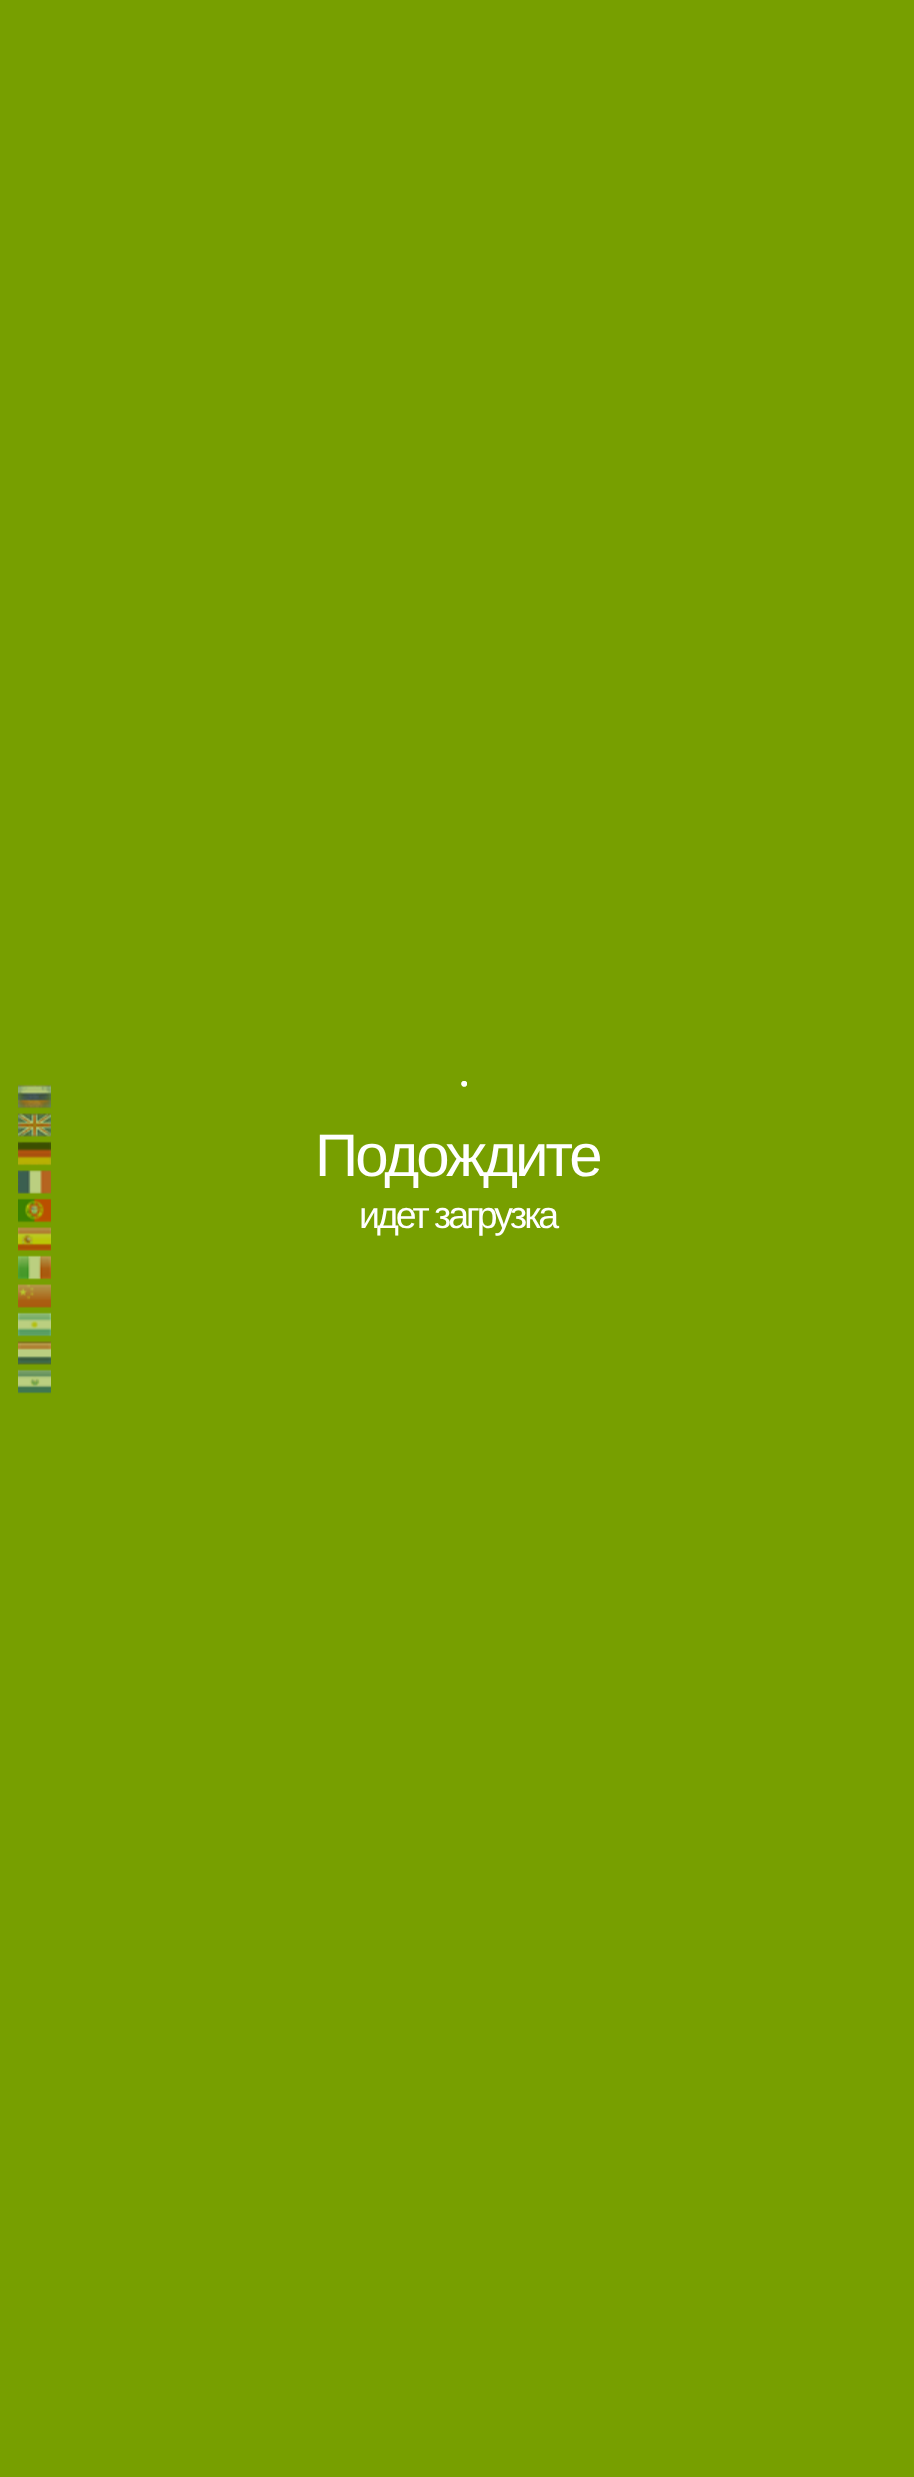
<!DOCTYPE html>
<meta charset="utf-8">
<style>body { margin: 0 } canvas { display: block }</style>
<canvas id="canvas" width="914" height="2477"></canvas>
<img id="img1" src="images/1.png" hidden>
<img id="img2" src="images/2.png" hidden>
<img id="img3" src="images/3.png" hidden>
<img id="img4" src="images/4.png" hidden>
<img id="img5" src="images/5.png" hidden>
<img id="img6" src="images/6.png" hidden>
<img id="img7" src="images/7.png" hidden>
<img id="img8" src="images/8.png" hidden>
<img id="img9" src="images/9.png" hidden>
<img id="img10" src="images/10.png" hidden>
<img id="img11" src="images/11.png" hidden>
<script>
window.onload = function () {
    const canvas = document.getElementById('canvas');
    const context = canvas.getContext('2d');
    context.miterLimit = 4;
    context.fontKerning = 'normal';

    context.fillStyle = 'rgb(119, 159, 0)';
    context.fillRect(0, 0, 914, 2477);
    context.drawImage(document.getElementById('img1'), 18, 1084, 33, 25);
    context.drawImage(document.getElementById('img2'), 18, 1113, 33, 24);
    context.drawImage(document.getElementById('img3'), 18, 1141, 33, 25);
    context.drawImage(document.getElementById('img4'), 18, 1170, 33, 24);
    context.drawImage(document.getElementById('img5'), 18, 1198, 33, 25);
    context.drawImage(document.getElementById('img6'), 18, 1227, 33, 24);
    context.drawImage(document.getElementById('img7'), 18, 1255, 33, 25);
    context.drawImage(document.getElementById('img8'), 18, 1284, 33, 24);
    context.drawImage(document.getElementById('img9'), 18, 1312, 33, 25);
    context.drawImage(document.getElementById('img10'), 18, 1341, 33, 24);
    context.drawImage(document.getElementById('img11'), 18, 1369, 33, 25);
    context.beginPath();
    context.arc(464.2, 1083.8, 1.4, 0, 2 * Math.PI);
    context.strokeStyle = 'rgb(255, 255, 255)';
    context.lineWidth = 2.8;
    context.stroke();
    context.beginPath();
    context.arc(464.2, 1083.8, 1.4, 0, 2 * Math.PI);
    context.stroke();
    context.letterSpacing = '-3px';
    context.font = '60px Liberation Sans';
    context.fillStyle = 'rgb(255, 255, 255)';
    context.fillText('Подождите', 315, 1176);
    context.font = '37.5px Liberation Sans';
    context.fillText('идет загрузка', 359, 1228);
};
</script>
